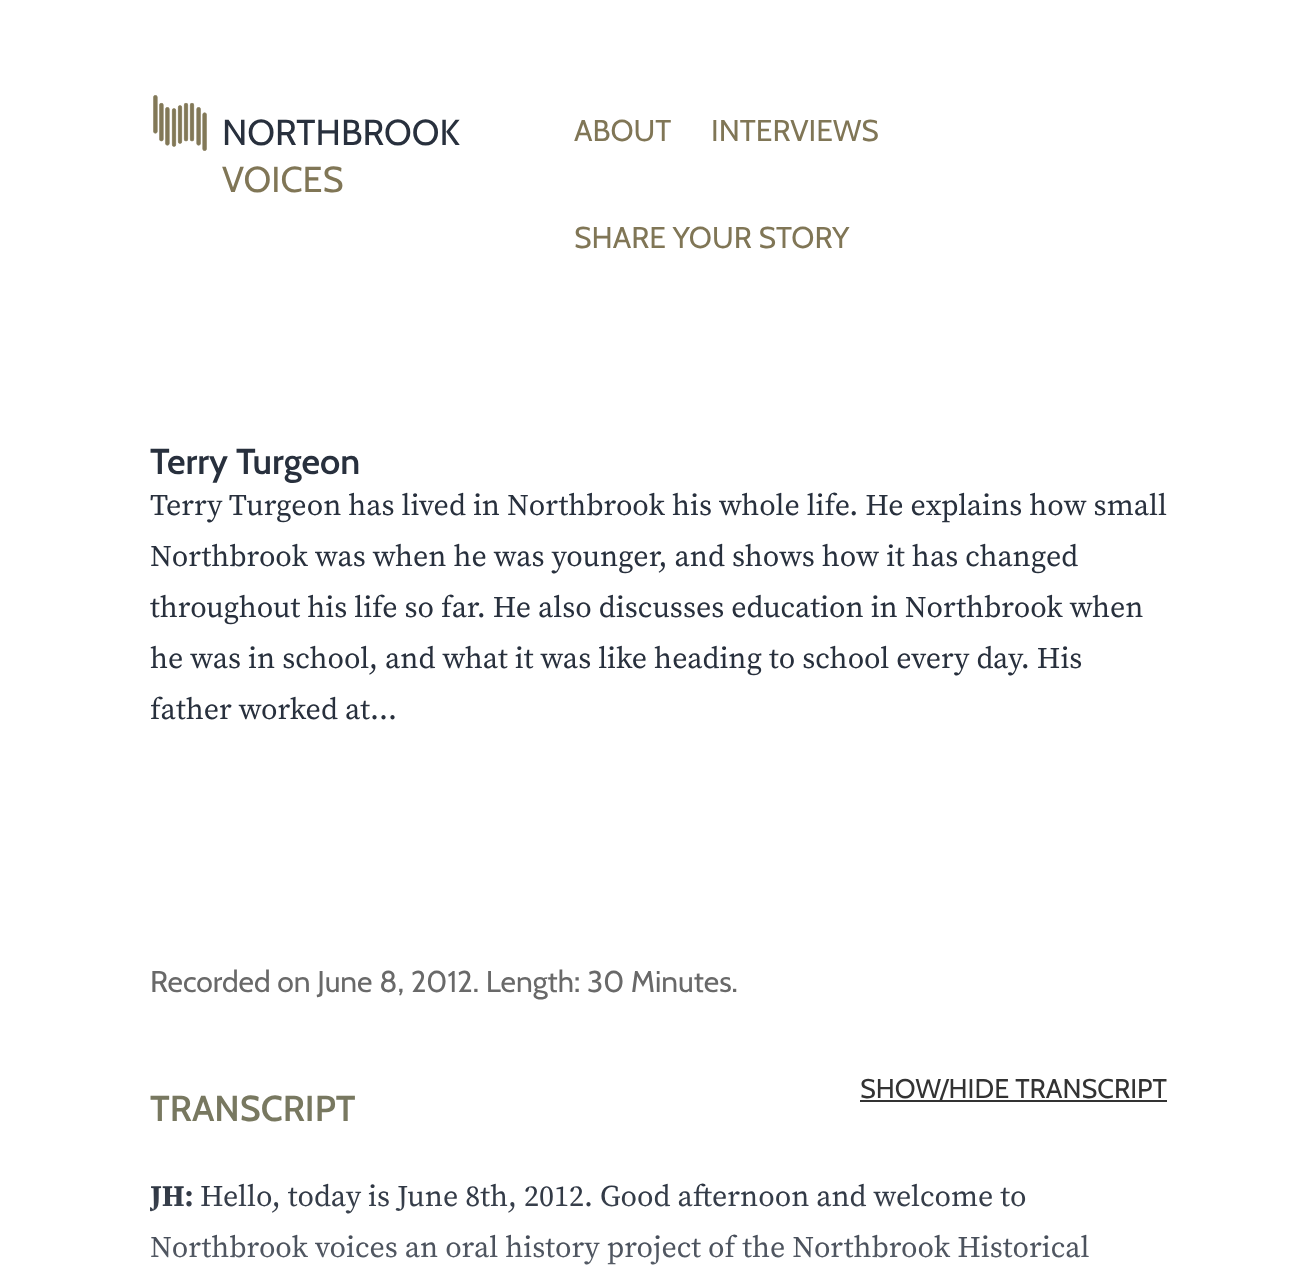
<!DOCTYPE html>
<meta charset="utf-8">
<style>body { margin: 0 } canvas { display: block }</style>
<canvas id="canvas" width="1316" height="1280"></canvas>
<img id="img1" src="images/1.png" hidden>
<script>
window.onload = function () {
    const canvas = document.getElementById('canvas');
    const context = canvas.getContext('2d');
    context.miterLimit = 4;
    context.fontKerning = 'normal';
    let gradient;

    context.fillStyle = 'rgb(255, 255, 255)';
    context.fillRect(0, 0, 1316, 1280);
    context.drawImage(document.getElementById('img1'), 153, 95, 54, 56);
    context.fillStyle = 'rgb(51, 51, 51)';
    context.fillRect(860, 1100, 307, 2);
    context.font = '36px Cabin';
    context.fillStyle = 'rgb(40, 48, 61)';
    context.fillText('NORTHBROOK', 222, 145);
    context.fillStyle = 'rgb(128, 118, 86)';
    context.fillText('VOICES', 222, 192);
    context.font = '30px Cabin';
    context.fillText('ABOUT', 574, 141);
    context.fillText('INTERVIEWS', 711, 141);
    context.fillText('SHARE YOUR STORY', 574, 248);
    context.font = '600 36px Cabin';
    context.fillStyle = 'rgb(40, 48, 61)';
    context.fillText('Terry Turgeon', 150, 474);
    context.font = '30px Source Serif Pro';
    context.fillText('Terry Turgeon has lived in Northbrook his whole life. He explains how small', 150, 515);
    context.fillText('Northbrook was when he was younger, and shows how it has changed', 150, 566);
    context.fillText('throughout his life so far. He also discusses education in Northbrook when', 150, 617);
    context.fillText('he was in school, and what it was like heading to school every day. His', 150, 668);
    context.fillText('father worked at…', 150, 719);
    context.font = '30px Cabin';
    context.fillStyle = 'rgb(105, 105, 105)';
    context.fillText('Recorded on June 8, 2012. Length: 30 Minutes.', 150, 992);
    context.font = '27px Cabin';
    context.fillStyle = 'rgb(51, 51, 51)';
    context.fillText('SHOW/HIDE TRANSCRIPT', 860, 1098);
    context.font = '600 36px Cabin';
    context.fillStyle = 'rgb(120, 120, 96)';
    context.fillText('TRANSCRIPT', 150, 1121);
    context.save();
    context.beginPath();
    context.rect(150, 1173, 1017, 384);
    context.clip();
    context.font = 'bold 30px Source Serif Pro';
    context.fillStyle = 'rgb(40, 48, 61)';
    context.fillText('JH:', 150, 1206);
    context.restore();
    context.font = '30px Source Serif Pro';
    context.fillStyle = 'rgb(40, 48, 61)';
    context.fillText('Hello, today is June 8th, 2012. Good afternoon and welcome to', 200, 1206);
    context.fillText('Northbrook voices an oral history project of the Northbrook Historical', 150, 1257);
    gradient = context.createLinearGradient(659, 1173, 659, 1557);
    gradient.addColorStop(0, 'rgba(255, 255, 255, 0)');
    gradient.addColorStop(1, 'rgba(255, 255, 255, 0.9)');
    context.fillStyle = gradient;
    context.fillRect(150, 1184, 939, 81);
};
</script>
